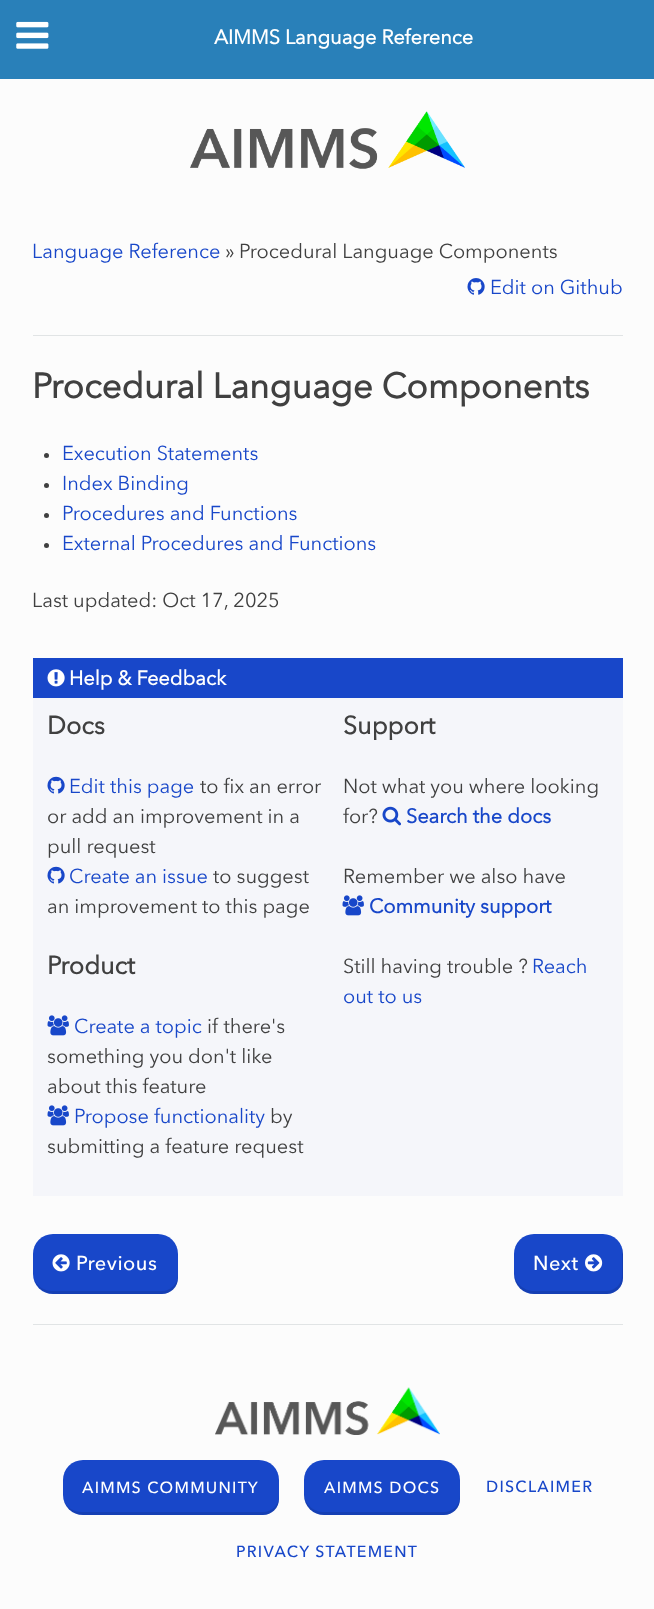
<!DOCTYPE html>
<meta charset="utf-8">
<style>body { margin: 0 } canvas { display: block }</style>
<canvas id="canvas" width="654" height="1609"></canvas>
<img id="img1" src="images/1.png" hidden>
<img id="img2" src="images/2.png" hidden>
<img id="img3" src="images/3.png" hidden>
<img id="img4" src="images/4.png" hidden>
<img id="img5" src="images/5.png" hidden>
<img id="img6" src="images/6.png" hidden>
<img id="img7" src="images/7.png" hidden>
<img id="img8" src="images/8.png" hidden>
<img id="img9" src="images/9.png" hidden>
<img id="img10" src="images/10.png" hidden>
<script>
window.onload = function () {
    const canvas = document.getElementById('canvas');
    const context = canvas.getContext('2d');
    context.miterLimit = 4;
    context.fontKerning = 'normal';

    context.fillStyle = 'rgb(252, 252, 252)';
    context.fillRect(0, 0, 654, 1609);
    context.fillStyle = 'rgb(41, 128, 185)';
    context.fillRect(0, 0, 654, 79);
    context.drawImage(document.getElementById('img1'), 16, 21, 33, 28);
    context.drawImage(document.getElementById('img2'), 190, 111, 275, 58);
    context.fillStyle = 'rgb(225, 228, 229)';
    context.fillRect(33, 335, 590, 1);
    context.drawImage(document.getElementById('img3'), 467, 278, 18, 17);
    context.fillStyle = 'rgb(64, 64, 64)';
    context.beginPath();
    context.arc(46.5, 455.5, 2.5, 0, 2 * Math.PI);
    context.fill();
    context.beginPath();
    context.arc(46.5, 485.5, 2.5, 0, 2 * Math.PI);
    context.fill();
    context.beginPath();
    context.arc(46.5, 515.5, 2.5, 0, 2 * Math.PI);
    context.fill();
    context.beginPath();
    context.arc(46.5, 545.5, 2.5, 0, 2 * Math.PI);
    context.fill();
    context.fillStyle = 'rgb(245, 246, 250)';
    context.fillRect(33, 698, 590, 498);
    context.fillStyle = 'rgb(24, 71, 201)';
    context.fillRect(33, 658, 590, 40);
    context.drawImage(document.getElementById('img4'), 47, 669, 18, 18);
    context.drawImage(document.getElementById('img5'), 47, 776, 18, 18);
    context.drawImage(document.getElementById('img5'), 47, 866, 18, 18);
    context.drawImage(document.getElementById('img6'), 47, 1015, 22, 21);
    context.drawImage(document.getElementById('img6'), 47, 1105, 22, 21);
    context.drawImage(document.getElementById('img7'), 382, 806, 19, 20);
    context.drawImage(document.getElementById('img6'), 342, 895, 22, 21);
    context.beginPath();
    context.roundRect(33, 1234, 145, 60, [20, 20, 16, 20]);
    context.fill();
    context.fillStyle = 'rgba(0, 0, 0, 0.1)';
    context.beginPath();
    context.moveTo(34, 1279);
    context.bezierCurveTo(36, 1287, 44, 1294, 53, 1294);
    context.lineTo(162, 1294);
    context.bezierCurveTo(171, 1294, 178, 1287, 178, 1278);
    context.lineTo(178, 1275);
    context.bezierCurveTo(178, 1284, 170, 1291, 162, 1291);
    context.lineTo(52, 1291);
    context.bezierCurveTo(44, 1291, 37, 1286, 34, 1279);
    context.closePath();
    context.fill();
    context.drawImage(document.getElementById('img8'), 52, 1254, 18, 18);
    context.fillStyle = 'rgb(24, 71, 201)';
    context.beginPath();
    context.roundRect(514, 1234, 109, 60, [20, 20, 16, 20]);
    context.fill();
    context.fillStyle = 'rgba(0, 0, 0, 0.1)';
    context.beginPath();
    context.moveTo(514, 1271);
    context.lineTo(514, 1274);
    context.bezierCurveTo(514, 1285, 523, 1294, 534, 1294);
    context.lineTo(607, 1294);
    context.bezierCurveTo(616, 1294, 623, 1287, 623, 1278);
    context.lineTo(623, 1254);
    context.bezierCurveTo(623, 1251, 622, 1249, 622, 1246);
    context.lineTo(622, 1251);
    context.lineTo(622, 1275);
    context.bezierCurveTo(622, 1284, 615, 1291, 606, 1291);
    context.lineTo(534, 1291);
    context.bezierCurveTo(523, 1291, 514, 1282, 514, 1271);
    context.closePath();
    context.fill();
    context.drawImage(document.getElementById('img9'), 585, 1254, 18, 18);
    context.fillStyle = 'rgb(225, 228, 229)';
    context.fillRect(33, 1324, 590, 1);
    context.drawImage(document.getElementById('img10'), 215, 1387, 225, 48);
    context.fillStyle = 'rgb(24, 71, 201)';
    context.beginPath();
    context.roundRect(63, 1460, 216, 55, [20, 20, 16, 20]);
    context.fill();
    context.fillStyle = 'rgba(0, 0, 0, 0.1)';
    context.beginPath();
    context.moveTo(64, 1501);
    context.bezierCurveTo(66, 1509, 74, 1515, 83, 1515);
    context.lineTo(263, 1515);
    context.bezierCurveTo(272, 1515, 279, 1508, 279, 1499);
    context.lineTo(279, 1496);
    context.bezierCurveTo(279, 1505, 272, 1512, 263, 1512);
    context.lineTo(82, 1512);
    context.bezierCurveTo(74, 1512, 67, 1508, 64, 1501);
    context.closePath();
    context.fill();
    context.fillStyle = 'rgb(24, 71, 201)';
    context.beginPath();
    context.roundRect(304, 1460, 156, 55, [20, 20, 16, 20]);
    context.fill();
    context.fillStyle = 'rgba(0, 0, 0, 0.1)';
    context.beginPath();
    context.moveTo(304, 1492);
    context.lineTo(304, 1495);
    context.bezierCurveTo(304, 1506, 313, 1515, 324, 1515);
    context.lineTo(444, 1515);
    context.bezierCurveTo(453, 1515, 460, 1508, 460, 1499);
    context.lineTo(460, 1496);
    context.bezierCurveTo(460, 1505, 453, 1512, 444, 1512);
    context.lineTo(324, 1512);
    context.bezierCurveTo(313, 1512, 304, 1504, 304, 1492);
    context.closePath();
    context.fill();
    context.font = 'bold 20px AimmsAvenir';
    context.fillStyle = 'rgb(255, 255, 255)';
    context.fillText('AIMMS Language Reference', 214, 44);
    context.font = '20px AimmsAvenir';
    context.fillStyle = 'rgb(24, 71, 201)';
    context.fillText('Language Reference', 32, 258);
    context.fillStyle = 'rgb(64, 64, 64)';
    context.fillText('» Procedural Language Components', 225, 258);
    context.fillStyle = 'rgb(24, 71, 201)';
    context.fillText('Edit on Github', 490, 294);
    context.font = 'bold 35px AimmsAvenir';
    context.fillStyle = 'rgb(64, 64, 64)';
    context.fillText('Procedural Language Components', 32, 398);
    context.font = '20px AimmsAvenir';
    context.fillStyle = 'rgb(24, 71, 201)';
    context.fillText('Execution Statements', 62, 460);
    context.fillText('Index Binding', 62, 490);
    context.fillText('Procedures and Functions', 62, 520);
    context.fillText('External Procedures and Functions', 62, 550);
    context.fillStyle = 'rgb(64, 64, 64)';
    context.fillText('Last updated: Oct 17, 2025', 32, 607);
    context.font = 'bold 20px AimmsAvenir';
    context.fillStyle = 'rgb(255, 255, 255)';
    context.fillText('Help & Feedback', 69, 685);
    context.font = 'bold 25px AimmsAvenir';
    context.fillStyle = 'rgb(64, 64, 64)';
    context.fillText('Docs', 47, 734);
    context.font = '20px AimmsAvenir';
    context.fillStyle = 'rgb(24, 71, 201)';
    context.fillText('Edit this page', 69, 793);
    context.fillStyle = 'rgb(64, 64, 64)';
    context.fillText('to fix an error', 200, 793);
    context.fillText('or add an improvement in a', 47, 823);
    context.fillText('pull request', 47, 853);
    context.fillStyle = 'rgb(24, 71, 201)';
    context.fillText('Create an issue', 69, 883);
    context.fillStyle = 'rgb(64, 64, 64)';
    context.fillText('to suggest', 213, 883);
    context.fillText('an improvement to this page', 47, 913);
    context.font = 'bold 25px AimmsAvenir';
    context.fillText('Product', 47, 974);
    context.font = '20px AimmsAvenir';
    context.fillStyle = 'rgb(24, 71, 201)';
    context.fillText('Create a topic', 74, 1033);
    context.fillStyle = 'rgb(64, 64, 64)';
    context.fillText('if there\'s', 207, 1033);
    context.fillText('something you don\'t like', 47, 1063);
    context.fillText('about this feature', 47, 1093);
    context.fillStyle = 'rgb(24, 71, 201)';
    context.fillText('Propose functionality', 74, 1123);
    context.fillStyle = 'rgb(64, 64, 64)';
    context.fillText('by', 270, 1123);
    context.fillText('submitting a feature request', 47, 1153);
    context.font = 'bold 25px AimmsAvenir';
    context.fillText('Support', 343, 734);
    context.font = '20px AimmsAvenir';
    context.fillText('Not what you where looking', 343, 793);
    context.fillText('for?', 343, 823);
    context.font = 'bold 20px AimmsAvenir';
    context.fillStyle = 'rgb(24, 71, 201)';
    context.fillText('Search the docs', 406, 823);
    context.font = '20px AimmsAvenir';
    context.fillStyle = 'rgb(64, 64, 64)';
    context.fillText('Remember we also have', 343, 883);
    context.font = 'bold 20px AimmsAvenir';
    context.fillStyle = 'rgb(24, 71, 201)';
    context.fillText('Community support', 369, 913);
    context.font = '20px AimmsAvenir';
    context.fillStyle = 'rgb(64, 64, 64)';
    context.fillText('Still having trouble ?', 343, 973);
    context.fillStyle = 'rgb(24, 71, 201)';
    context.fillText('Reach', 532, 973);
    context.fillText('out to us', 343, 1003);
    context.letterSpacing = '0.5px';
    context.font = '20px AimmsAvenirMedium';
    context.fillStyle = 'rgb(255, 255, 255)';
    context.fillText('Previous', 76, 1270);
    context.fillText('Next', 533, 1270);
    context.letterSpacing = '1.25px';
    context.font = '16px AimmsAvenirMedium';
    context.fillText('AIMMS COMMUNITY', 82, 1493);
    context.fillText('AIMMS DOCS', 324, 1493);
    context.fillStyle = 'rgb(24, 71, 201)';
    context.fillText('DISCLAIMER', 486, 1492);
    context.fillText('PRIVACY STATEMENT', 236, 1557);
};
</script>
